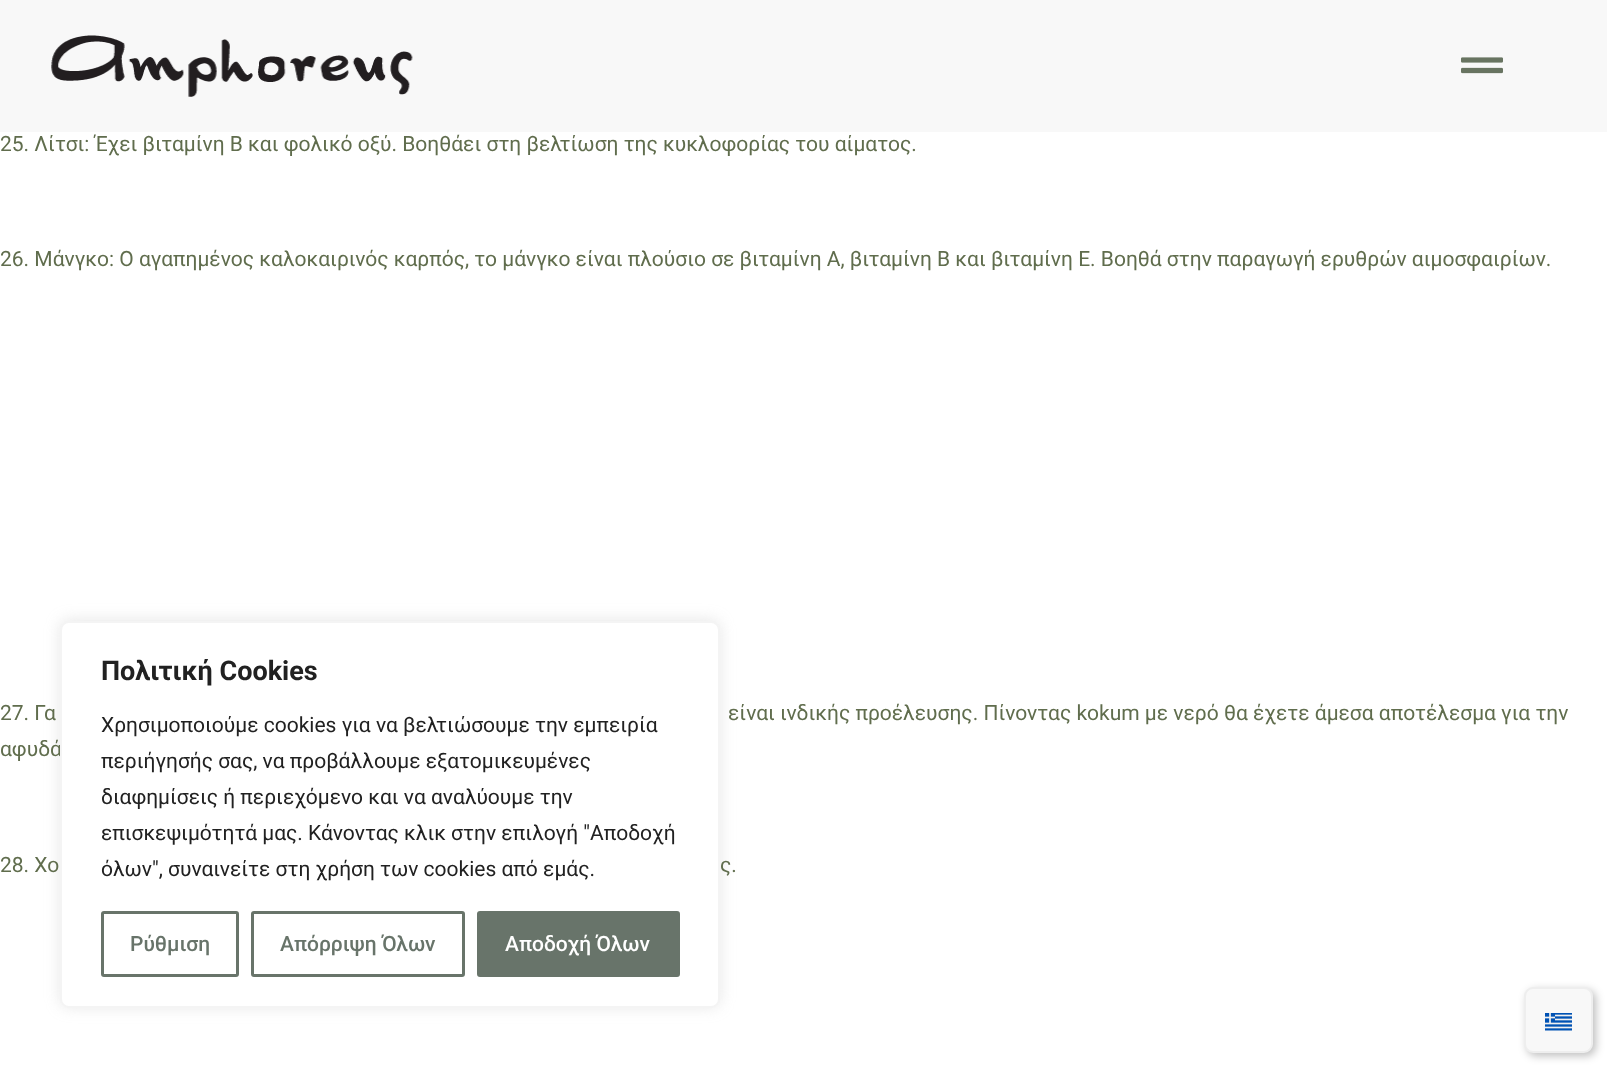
<!DOCTYPE html>
<meta charset="utf-8">
<style>body { margin: 0 } canvas { display: block }</style>
<canvas id="canvas" width="1607" height="1067"></canvas>
<img id="img1" src="images/1.png" hidden>
<img id="img2" src="images/2.png" hidden>
<img id="img3" src="images/3.png" hidden>
<script>
window.onload = function () {
    const canvas = document.getElementById('canvas');
    const context = canvas.getContext('2d');
    context.miterLimit = 4;
    context.fontKerning = 'normal';

    context.fillStyle = 'rgb(255, 255, 255)';
    context.fillRect(0, 0, 1607, 1067);
    context.fillStyle = 'rgb(248, 248, 248)';
    context.fillRect(0, 0, 1607, 132);
    context.drawImage(document.getElementById('img1'), 51, 35, 362, 62);
    context.drawImage(document.getElementById('img2'), 1461, 57, 42, 17);
    context.fillStyle = 'rgba(172, 171, 171, 0.3)';
    context.filter = 'blur(7.5px)';
    context.beginPath();
    context.roundRect(60, 620, 660, 387, 9);
    context.fill();
    context.filter = 'none';
    context.fillStyle = 'rgba(0, 0, 0, 0.25)';
    context.filter = 'blur(4px)';
    context.beginPath();
    context.roundRect(1527, 990, 69, 66, 9);
    context.fill();
    context.filter = 'none';
    context.fillStyle = 'rgb(248, 248, 248)';
    context.beginPath();
    context.roundRect(1525, 988, 67, 64, 8);
    context.fill();
    context.strokeStyle = 'rgb(238, 238, 238)';
    context.lineWidth = 2;
    context.stroke();
    context.drawImage(document.getElementById('img3'), 1545, 1013, 27, 18);
    context.font = '21px Roboto';
    context.fillStyle = 'rgb(96, 109, 77)';
    context.fillText('25. Λίτσι: Έχει βιταμίνη Β και φολικό οξύ. Βοηθάει στη βελτίωση της κυκλοφορίας του αίματος.', 0, 151);
    context.fillText('26. Μάνγκο: Ο αγαπημένος καλοκαιρινός καρπός, το μάνγκο είναι πλούσιο σε βιταμίνη Α, βιταμίνη Β και βιταμίνη Ε. Βοηθά στην παραγωγή ερυθρών αιμοσφαιρίων.', 0, 266);
    context.fillText('27. Γα', 0, 720);
    context.fillText('είναι ινδικής προέλευσης. Πίνοντας kokum με νερό θα έχετε άμεσα αποτέλεσμα για την', 728, 720);
    context.fillText('αφυδά', 0, 756);
    context.fillText('28. Χο', 0, 872);
    context.fillText('ς.', 720, 872);
    context.fillStyle = 'rgb(255, 255, 255)';
    context.beginPath();
    context.roundRect(61, 622, 658, 385, 8);
    context.fill();
    context.strokeStyle = 'rgb(244, 244, 244)';
    context.stroke();
    context.font = 'bold 27px Roboto';
    context.fillStyle = 'rgb(33, 33, 33)';
    context.fillText('Πολιτική Cookies', 101, 680);
    context.font = '21px Roboto';
    context.fillText('Χρησιμοποιούμε cookies για να βελτιώσουμε την εμπειρία', 101, 732);
    context.fillText('περιήγησής σας, να προβάλλουμε εξατομικευμένες', 101, 768);
    context.fillText('διαφημίσεις ή περιεχόμενο και να αναλύουμε την', 101, 804);
    context.fillText('επισκεψιμότητά μας. Κάνοντας κλικ στην επιλογή "Αποδοχή', 101, 840);
    context.fillText('όλων", συναινείτε στη χρήση των cookies από εμάς.', 101, 876);
    context.beginPath();
    context.roundRect(102.5, 912.5, 135, 63, 1.5);
    context.strokeStyle = 'rgb(104, 116, 106)';
    context.lineWidth = 3;
    context.stroke();
    context.font = '500 21px Roboto';
    context.fillStyle = 'rgb(104, 116, 106)';
    context.fillText('Ρύθμιση', 130, 951);
    context.beginPath();
    context.roundRect(252.5, 912.5, 211, 63, 1.5);
    context.stroke();
    context.fillText('Απόρριψη Όλων', 280, 951);
    context.beginPath();
    context.roundRect(478.5, 912.5, 200, 63, 1.5);
    context.fill();
    context.stroke();
    context.fillStyle = 'rgb(255, 255, 255)';
    context.fillText('Αποδοχή Όλων', 505, 951);
};
</script>
